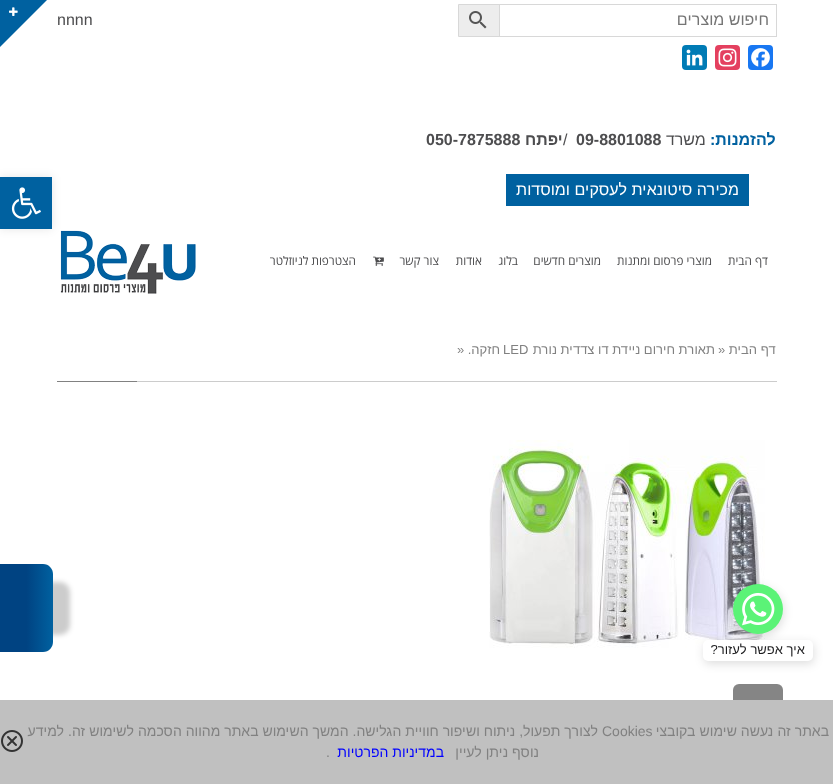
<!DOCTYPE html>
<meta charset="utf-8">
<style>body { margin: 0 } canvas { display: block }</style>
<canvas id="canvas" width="833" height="784"></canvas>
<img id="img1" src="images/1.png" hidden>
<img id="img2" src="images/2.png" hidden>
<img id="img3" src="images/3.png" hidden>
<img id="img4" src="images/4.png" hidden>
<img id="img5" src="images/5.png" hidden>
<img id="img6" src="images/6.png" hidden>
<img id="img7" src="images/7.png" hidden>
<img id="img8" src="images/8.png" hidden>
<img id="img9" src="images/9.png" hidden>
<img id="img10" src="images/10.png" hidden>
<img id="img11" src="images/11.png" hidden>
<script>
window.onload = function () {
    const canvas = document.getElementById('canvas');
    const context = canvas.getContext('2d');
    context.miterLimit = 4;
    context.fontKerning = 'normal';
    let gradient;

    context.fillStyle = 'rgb(255, 255, 255)';
    context.fillRect(0, 0, 833, 784);
    context.fillStyle = 'rgb(237, 237, 237)';
    context.beginPath();
    context.rect(458.5, 4.5, 41, 32);
    context.fill();
    context.strokeStyle = 'rgb(216, 216, 216)';
    context.stroke();
    context.strokeRect(499.5, 4.5, 277, 32);
    context.drawImage(document.getElementById('img1'), 469, 11, 18, 18);
    context.fillStyle = 'rgb(24, 119, 242)';
    context.beginPath();
    context.roundRect(748, 45, 25, 25, 4);
    context.fill();
    context.drawImage(document.getElementById('img2'), 751, 48, 19, 19);
    context.fillStyle = 'rgb(228, 64, 95)';
    context.beginPath();
    context.roundRect(715, 45, 25, 25, 4);
    context.fill();
    context.drawImage(document.getElementById('img3'), 718, 48, 19, 19);
    context.fillStyle = 'rgb(0, 123, 181)';
    context.beginPath();
    context.roundRect(682, 45, 25, 25, 4);
    context.fill();
    context.drawImage(document.getElementById('img4'), 686, 49, 17, 17);
    context.fillStyle = 'rgb(0, 97, 160)';
    context.fillRect(506, 174, 243, 32);
    context.drawImage(document.getElementById('img5'), 373, 256, 11, 10);
    context.drawImage(document.getElementById('img6'), 60, 230, 136, 64);
    context.fillStyle = 'rgb(204, 204, 204)';
    context.fillRect(137, 381, 640, 1);
    context.fillStyle = 'rgb(129, 129, 129)';
    context.fillRect(57, 381, 80, 1);
    context.drawImage(document.getElementById('img7'), 489, 440, 276, 208);
    context.fillStyle = 'rgb(0, 97, 160)';
    context.beginPath();
    context.moveTo(0, 47);
    context.lineTo(0, -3);
    context.lineTo(50, -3);
    context.closePath();
    context.fill();
    context.drawImage(document.getElementById('img8'), 9, 7, 9, 9);
    context.fillStyle = 'rgba(0, 0, 0, 0.1)';
    context.filter = 'blur(5px)';
    context.beginPath();
    context.rect(0, 177, 52, 52);
    context.fill();
    context.filter = 'none';
    context.fillStyle = 'rgb(0, 97, 160)';
    context.fillRect(0, 177, 52, 52);
    context.drawImage(document.getElementById('img9'), 11, 187, 30, 32);
    context.fillStyle = 'rgba(0, 0, 0, 0.2)';
    context.filter = 'blur(2.5px)';
    context.beginPath();
    context.roundRect(-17, 582, 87, 53, 10);
    context.fill();
    context.filter = 'none';
    gradient = context.createLinearGradient(53, 608, 0, 608);
    gradient.addColorStop(0, 'rgb(0, 97, 160)');
    gradient.addColorStop(0.5, 'rgb(0, 67, 130)');
    context.fillStyle = gradient;
    context.beginPath();
    context.moveTo(53, 574);
    context.lineTo(53, 642);
    context.bezierCurveTo(53, 647, 49, 652, 43, 652);
    context.lineTo(0, 652);
    context.lineTo(0, 564);
    context.lineTo(43, 564);
    context.bezierCurveTo(49, 564, 53, 569, 53, 574);
    context.closePath();
    context.fill();
    context.fillStyle = 'rgba(0, 0, 0, 0.13)';
    context.filter = 'blur(5px)';
    context.beginPath();
    context.roundRect(734, 587, 50, 50, 25);
    context.fill();
    context.filter = 'none';
    context.fillStyle = 'rgb(91, 243, 119)';
    context.beginPath();
    context.arc(758, 609, 25, 0, 2 * Math.PI);
    context.fill();
    context.drawImage(document.getElementById('img10'), 742, 592, 33, 34);
    context.fillStyle = 'rgba(0, 0, 0, 0.13)';
    context.filter = 'blur(5px)';
    context.beginPath();
    context.roundRect(704, 643, 110, 21, 5);
    context.fill();
    context.filter = 'none';
    context.fillStyle = 'rgb(255, 255, 255)';
    context.beginPath();
    context.roundRect(703, 640, 110, 21, 5);
    context.fill();
    context.fillStyle = 'rgba(51, 51, 51, 0.6)';
    context.beginPath();
    context.roundRect(733, 684, 50, 50, 6);
    context.fill();
    context.fillStyle = 'rgb(192, 192, 192)';
    context.fillRect(0, 700, 833, 84);
    context.drawImage(document.getElementById('img11'), 1, 730, 22, 22);
    context.direction = 'rtl';
    context.font = '16px Arimo';
    context.fillStyle = 'rgb(117, 117, 117)';
    context.fillText('חיפוש מוצרים', 769, 25);
    context.font = 'bold 16px Arimo';
    context.fillStyle = 'rgb(0, 97, 160)';
    context.fillText('להזמנות:', 776, 145);
    context.font = '16px Arimo';
    context.fillStyle = 'rgb(77, 77, 79)';
    context.fillText('משרד', 706, 145);
    context.direction = 'ltr';
    context.font = 'bold 16px Arimo';
    context.fillText('09-8801088', 576, 145);
    context.font = '16px Arimo';
    context.fillText('/', 563, 145);
    context.direction = 'rtl';
    context.font = 'bold 16px Arimo';
    context.fillText('יפתח', 563, 145);
    context.direction = 'ltr';
    context.fillText('050-7875888', 426, 145);
    context.direction = 'rtl';
    context.font = '16px Arimo';
    context.fillStyle = 'rgb(255, 255, 255)';
    context.fillText('מכירה סיטונאית לעסקים ומוסדות', 739, 195);
    context.direction = 'ltr';
    context.fillStyle = 'rgb(77, 77, 79)';
    context.fillText('nnnn', 57, 25);
    context.direction = 'rtl';
    context.font = '11.75px Open Sans';
    context.fillText('דף הבית', 768, 265);
    context.fillText('מוצרי פרסום ומתנות', 712, 265);
    context.fillText('מוצרים חדשים', 601, 265);
    context.fillText('בלוג', 518, 265);
    context.fillText('אודות', 482, 265);
    context.fillText('צור קשר', 439, 265);
    context.fillText('הצטרפות לניוזלטר', 356, 265);
    context.font = '13px Arimo';
    context.fillStyle = 'rgb(129, 129, 129)';
    context.fillText('דף הבית', 776, 354);
    context.direction = 'ltr';
    context.fillText('»', 718, 354);
    context.direction = 'rtl';
    context.fillText('תאורת חירום ניידת דו צדדית נורת', 715, 354);
    context.direction = 'ltr';
    context.fillText('LED', 503, 354);
    context.direction = 'rtl';
    context.fillText('חזקה.', 500, 354);
    context.direction = 'ltr';
    context.fillText('»', 457, 354);
    context.direction = 'rtl';
    context.font = '16px Liberation Sans';
    context.fillStyle = 'rgb(255, 255, 255)';
    context.save();
    context.translate(76, 580);
    context.rotate(90 * Math.PI / 180);
    context.fillText('צור קשר', 0, 0);
    context.restore();
    context.font = '13px Arimo';
    context.fillStyle = 'rgb(29, 29, 31)';
    context.fillText('איך אפשר לעזור?', 805, 654);
    context.font = '14px Arimo';
    context.fillStyle = 'rgb(129, 129, 129)';
    context.fillText('באתר זה נעשה שימוש בקובצי', 829, 736);
    context.direction = 'ltr';
    context.fillText('Cookies', 602, 736);
    context.direction = 'rtl';
    context.fillText('לצורך תפעול, ניתוח ושיפור חוויית הגלישה. המשך השימוש באתר מהווה הסכמה לשימוש זה. למידע', 598, 736);
    context.fillText('נוסף ניתן לעיין', 539, 757);
    context.fillStyle = 'rgb(0, 0, 255)';
    context.fillText('במדיניות הפרטיות', 444, 757);
    context.direction = 'ltr';
    context.fillStyle = 'rgb(129, 129, 129)';
    context.fillText('.', 326, 757);
};
</script>
